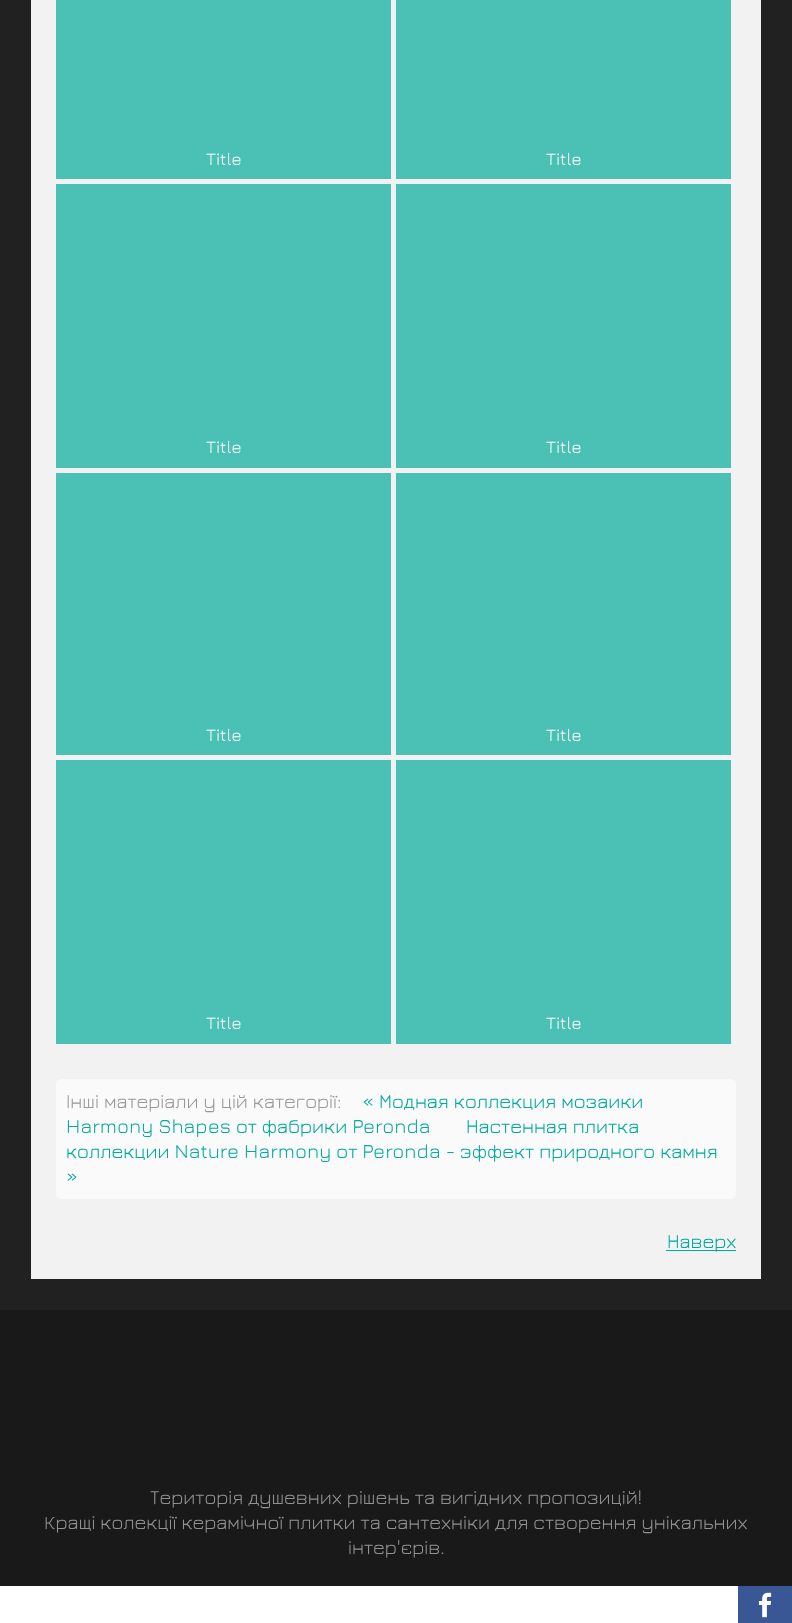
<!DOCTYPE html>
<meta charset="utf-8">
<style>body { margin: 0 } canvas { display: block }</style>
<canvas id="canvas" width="792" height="1623"></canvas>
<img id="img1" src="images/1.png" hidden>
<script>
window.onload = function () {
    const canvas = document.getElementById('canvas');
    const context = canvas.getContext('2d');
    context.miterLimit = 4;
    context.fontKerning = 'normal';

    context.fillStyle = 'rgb(33, 33, 33)';
    context.fillRect(0, 0, 792, 1623);
    context.fillStyle = 'rgb(242, 242, 242)';
    context.fillRect(31, 0, 730, 1279);
    context.fillStyle = 'rgb(75, 193, 182)';
    context.fillRect(56, 0, 335, 179);
    context.fillRect(396, 0, 335, 179);
    context.fillRect(56, 184, 335, 284);
    context.fillRect(396, 184, 335, 284);
    context.fillRect(56, 473, 335, 282);
    context.fillRect(396, 473, 335, 282);
    context.fillRect(56, 760, 335, 284);
    context.fillRect(396, 760, 335, 284);
    context.fillStyle = 'rgb(250, 250, 250)';
    context.beginPath();
    context.roundRect(56, 1079, 680, 120, 5);
    context.fill();
    context.fillStyle = 'rgb(0, 170, 157)';
    context.fillRect(666, 1250, 70, 1);
    context.fillStyle = 'rgb(255, 255, 255)';
    context.fillRect(0, 1586, 738, 37);
    context.fillStyle = 'rgb(58, 87, 149)';
    context.fillRect(738, 1586, 54, 37);
    context.drawImage(document.getElementById('img1'), 758, 1592, 14, 26);
    context.fillStyle = 'rgb(25, 25, 25)';
    context.fillRect(0, 1310, 792, 276);
    context.font = '300 17.5px Jura';
    context.fillStyle = 'rgb(255, 255, 255)';
    context.fillText('Title', 206, 165);
    context.fillText('Title', 546, 165);
    context.fillText('Title', 206, 453);
    context.fillText('Title', 546, 453);
    context.fillText('Title', 206, 741);
    context.fillText('Title', 546, 741);
    context.fillText('Title', 206, 1029);
    context.fillText('Title', 546, 1029);
    context.font = '300 20px Jura';
    context.fillStyle = 'rgb(153, 153, 153)';
    context.fillText('Інші матеріали у цій категорії:', 66, 1108);
    context.fillStyle = 'rgb(0, 170, 157)';
    context.fillText('« Модная коллекция мозаики', 362, 1108);
    context.fillText('Harmony Shapes от фабрики Peronda', 66, 1133);
    context.fillText('Настенная плитка', 466, 1133);
    context.fillText('коллекции Nature Harmony от Peronda - эффект природного камня', 66, 1158);
    context.fillText('»', 66, 1183);
    context.fillText('Наверх', 667, 1248);
    context.fillStyle = 'rgb(145, 145, 145)';
    context.fillText('Територія душевних рішень та вигідних пропозицій!', 150, 1504);
    context.fillText('Кращі колекції керамічної плитки та сантехніки для створення унікальних', 44, 1529);
    context.fillText('інтер\'єрів.', 348, 1554);
};
</script>
